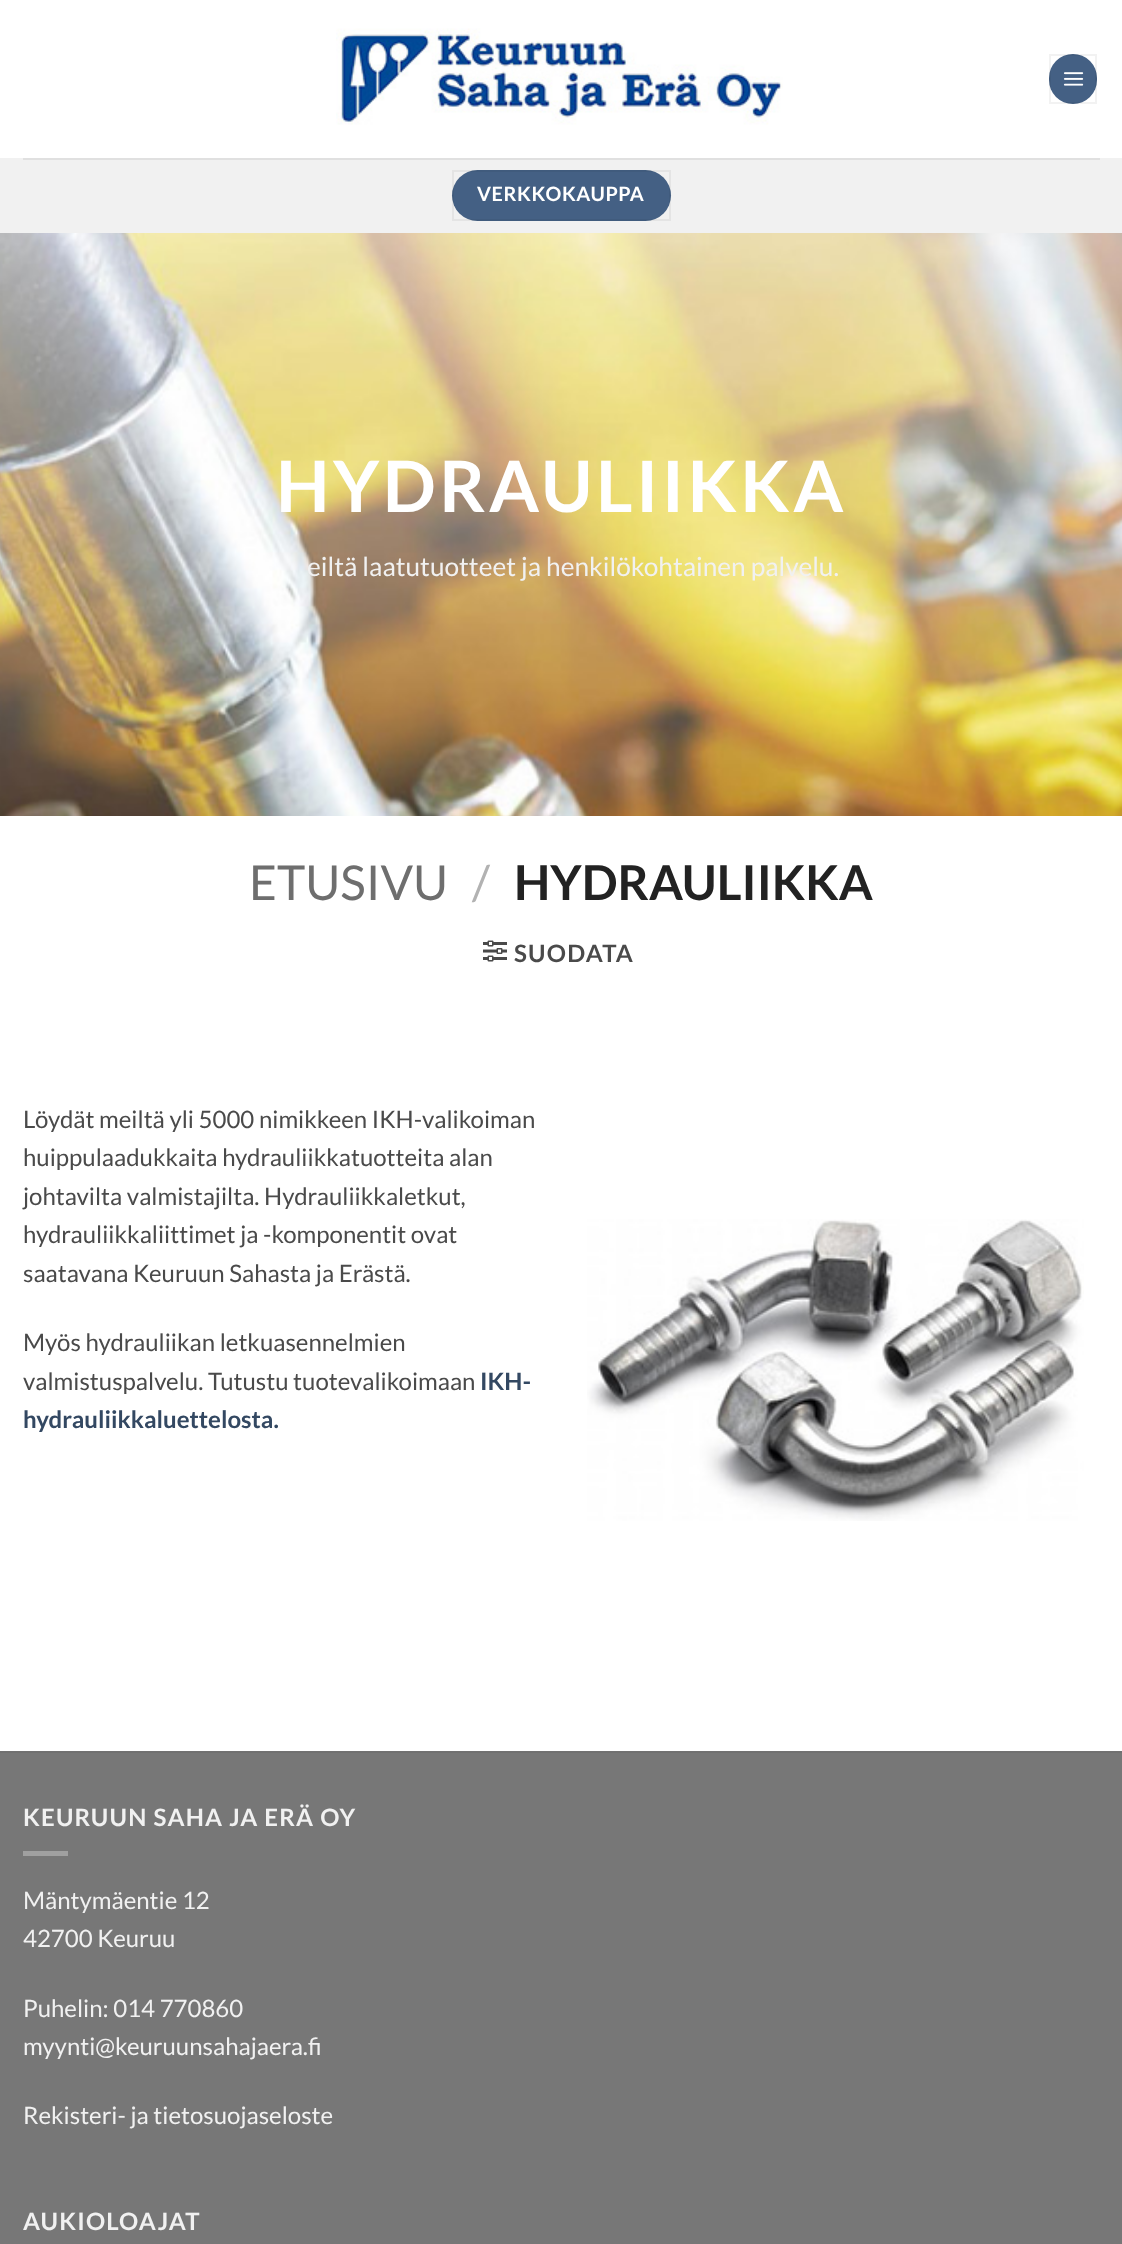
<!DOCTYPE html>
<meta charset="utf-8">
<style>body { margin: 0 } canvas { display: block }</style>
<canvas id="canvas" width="1122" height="2244"></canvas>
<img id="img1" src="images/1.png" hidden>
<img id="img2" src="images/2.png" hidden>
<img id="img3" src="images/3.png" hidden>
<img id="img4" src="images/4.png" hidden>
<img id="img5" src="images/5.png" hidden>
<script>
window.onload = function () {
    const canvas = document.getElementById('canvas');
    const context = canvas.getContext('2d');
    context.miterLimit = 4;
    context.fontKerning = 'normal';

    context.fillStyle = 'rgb(255, 255, 255)';
    context.fillRect(0, 0, 1122, 2244);
    context.drawImage(document.getElementById('img1'), 336, 28, 447, 97);
    context.fillStyle = 'rgb(68, 96, 132)';
    context.beginPath();
    context.roundRect(1049, 54, 48, 50, 24);
    context.fill();
    context.strokeStyle = 'rgba(0, 0, 0, 0.05)';
    context.lineWidth = 2;
    context.strokeRect(1050, 55, 46, 48);
    context.drawImage(document.getElementById('img2'), 1063, 72, 21, 14);
    context.fillStyle = 'rgb(241, 241, 241)';
    context.fillRect(0, 158, 1122, 75);
    context.fillStyle = 'rgb(224, 224, 224)';
    context.fillRect(23, 158, 1077, 2);
    context.fillStyle = 'rgb(68, 96, 132)';
    context.beginPath();
    context.roundRect(452, 170, 219, 51, 25.5);
    context.fill();
    context.strokeRect(453, 171, 217, 49);
    context.drawImage(document.getElementById('img3'), 0, 233, 1122, 583);
    context.drawImage(document.getElementById('img4'), 483, 940, 24, 22);
    context.drawImage(document.getElementById('img5'), 587, 1219, 497, 302);
    context.fillStyle = 'rgb(119, 119, 119)';
    context.fillRect(0, 1753, 1122, 491);
    context.fillStyle = 'rgb(113, 113, 113)';
    context.fillRect(0, 1751, 1122, 2);
    context.fillStyle = 'rgb(160, 160, 160)';
    context.fillRect(23, 1851, 45, 5);
    context.letterSpacing = '0.6px';
    context.font = 'bold 19.75px Lato';
    context.fillStyle = 'rgb(255, 255, 255)';
    context.fillText('VERKKOKAUPPA', 477, 201);
    context.letterSpacing = '3.5px';
    context.font = 'bold 70.75px Lato';
    context.fillText('HYDRAULIIKKA', 276, 512);
    context.letterSpacing = '0px';
    context.font = '26.25px Lato';
    context.fillStyle = 'rgb(241, 241, 241)';
    context.fillText('eiltä laatutuotteet ja henkilökohtainen palvelu.', 307, 576);
    context.font = '48px Lato';
    context.fillStyle = 'rgb(110, 110, 110)';
    context.fillText('ETUSIVU', 249, 900);
    context.fillStyle = 'rgb(178, 178, 178)';
    context.fillText('/', 472, 900);
    context.font = 'bold 48px Lato';
    context.fillStyle = 'rgb(34, 34, 34)';
    context.fillText('HYDRAULIIKKA', 514, 900);
    context.letterSpacing = '1.2px';
    context.font = 'bold 24px Lato';
    context.fillStyle = 'rgb(74, 74, 74)';
    context.fillText('SUODATA', 514, 962);
    context.letterSpacing = '0px';
    context.font = '24px Lato';
    context.fillText('Löydät meiltä yli 5000 nimikkeen IKH-valikoiman', 23, 1128);
    context.fillText('huippulaadukkaita hydrauliikkatuotteita alan', 23, 1166);
    context.fillText('johtavilta valmistajilta. Hydrauliikkaletkut,', 23, 1205);
    context.fillText('hydrauliikkaliittimet ja -komponentit ovat', 23, 1243);
    context.fillText('saatavana Keuruun Sahasta ja Erästä.', 23, 1282);
    context.fillText('Myös hydrauliikan letkuasennelmien', 23, 1351);
    context.fillText('valmistuspalvelu. Tutustu tuotevalikoimaan', 23, 1390);
    context.font = 'bold 24px Lato';
    context.fillStyle = 'rgb(51, 72, 98)';
    context.fillText('IKH-', 480, 1390);
    context.fillText('hydrauliikkaluettelosta.', 23, 1428);
    context.letterSpacing = '1.2px';
    context.fillStyle = 'rgb(241, 241, 241)';
    context.fillText('KEURUUN SAHA JA ERÄ OY', 23, 1826);
    context.letterSpacing = '0px';
    context.font = '24px Lato';
    context.fillText('Mäntymäentie 12', 23, 1909);
    context.fillText('42700 Keuruu', 23, 1947);
    context.fillText('Puhelin: 014 770860', 23, 2017);
    context.fillText('myynti@keuruunsahajaera.fi', 23, 2055);
    context.fillText('Rekisteri- ja tietosuojaseloste', 23, 2124);
    context.letterSpacing = '1.2px';
    context.font = 'bold 24px Lato';
    context.fillText('AUKIOLOAJAT', 23, 2230);
};
</script>
